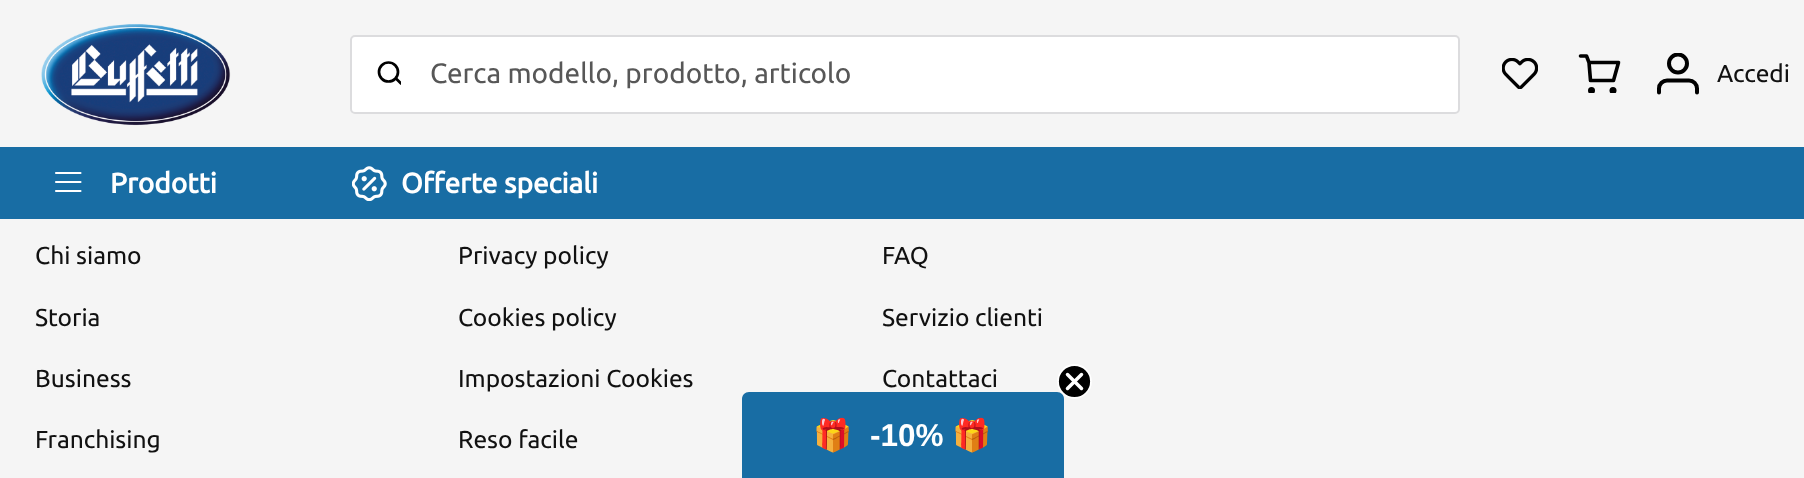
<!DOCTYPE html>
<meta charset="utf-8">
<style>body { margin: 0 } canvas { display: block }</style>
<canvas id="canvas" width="1804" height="478"></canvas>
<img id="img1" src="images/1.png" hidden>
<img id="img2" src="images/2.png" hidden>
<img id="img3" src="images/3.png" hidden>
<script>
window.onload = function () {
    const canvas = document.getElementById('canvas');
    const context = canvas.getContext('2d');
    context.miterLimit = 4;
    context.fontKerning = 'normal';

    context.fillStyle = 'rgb(245, 245, 245)';
    context.fillRect(0, 0, 1804, 478);
    context.drawImage(document.getElementById('img1'), 41, 24, 190, 102);
    context.fillStyle = 'rgb(255, 255, 255)';
    context.beginPath();
    context.roundRect(351, 36, 1108, 77, 4);
    context.fill();
    context.strokeStyle = 'rgb(220, 220, 222)';
    context.lineWidth = 2;
    context.stroke();
    context.beginPath();
    context.arc(388.5, 72, 9.5, 0, 2 * Math.PI);
    context.strokeStyle = 'rgb(0, 0, 0)';
    context.lineWidth = 2.7;
    context.stroke();
    context.save();
    context.beginPath();
    context.rect(376, 61, 25, 25);
    context.clip();
    context.beginPath();
    context.moveTo(396.5, 79);
    context.lineTo(401, 83.5);
    context.lineCap = 'round';
    context.lineJoin = 'round';
    context.stroke();
    context.restore();
    context.drawImage(document.getElementById('img2'), 1502, 58, 36, 31);
    context.beginPath();
    context.moveTo(1580.5, 56);
    context.lineTo(1586.5, 56);
    context.lineTo(1589, 62.5);
    context.moveTo(1589, 62.5);
    context.lineTo(1590.5, 80.5);
    context.lineTo(1613.5, 80.5);
    context.lineTo(1618.5, 62.5);
    context.closePath();
    context.lineWidth = 3.6;
    context.lineCap = 'round';
    context.lineJoin = 'round';
    context.stroke();
    context.save();
    context.beginPath();
    context.rect(1579, 54, 42, 39);
    context.clip();
    context.fillStyle = 'rgb(0, 0, 0)';
    context.beginPath();
    context.arc(1613, 90.5, 3.5, 0, 2 * Math.PI);
    context.fill();
    context.beginPath();
    context.arc(1591.5, 90.5, 3.5, 0, 2 * Math.PI);
    context.fill();
    context.restore();
    context.save();
    context.beginPath();
    context.rect(1657, 53, 42, 42);
    context.clip();
    context.beginPath();
    context.arc(1678, 63.5, 9, 0, 2 * Math.PI);
    context.lineWidth = 4;
    context.stroke();
    context.restore();
    context.beginPath();
    context.moveTo(1659, 92.5);
    context.lineTo(1659, 88.5);
    context.bezierCurveTo(1659, 84, 1663, 80.5, 1667, 80.5);
    context.lineTo(1689, 80.5);
    context.bezierCurveTo(1693.5, 80.5, 1697, 84, 1697, 88.5);
    context.lineTo(1697, 92.5);
    context.lineWidth = 4;
    context.stroke();
    context.fillStyle = 'rgb(24, 109, 164)';
    context.fillRect(0, 147, 1804, 72);
    context.beginPath();
    context.moveTo(56, 173);
    context.lineTo(80.5, 173);
    context.moveTo(56, 182);
    context.lineTo(80.5, 182);
    context.moveTo(56, 191);
    context.lineTo(80.5, 191);
    context.strokeStyle = 'rgb(255, 255, 255)';
    context.lineWidth = 2.1;
    context.lineJoin = 'miter';
    context.stroke();
    context.drawImage(document.getElementById('img3'), 352, 166, 35, 35);
    context.beginPath();
    context.moveTo(749, 392);
    context.lineTo(1057, 392);
    context.bezierCurveTo(1061, 392, 1064, 395, 1064, 399);
    context.lineTo(1064, 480);
    context.lineTo(742, 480);
    context.lineTo(742, 399);
    context.bezierCurveTo(742, 395, 745, 392, 749, 392);
    context.closePath();
    context.fill();
    context.fillStyle = 'rgb(0, 0, 0)';
    context.beginPath();
    context.arc(1074.5, 381.5, 16.5, 0, 2 * Math.PI);
    context.fill();
    context.lineWidth = 1.8;
    context.stroke();
    context.beginPath();
    context.moveTo(1067.5, 374.5);
    context.lineTo(1081.5, 388.5);
    context.moveTo(1067.5, 388.5);
    context.lineTo(1081.5, 374.5);
    context.closePath();
    context.lineWidth = 3.5;
    context.lineJoin = 'round';
    context.stroke();
    context.font = '28px Ubuntu';
    context.fillStyle = 'rgb(87, 87, 87)';
    context.fillText('Cerca modello, prodotto, articolo', 430, 83);
    context.font = '24.5px Ubuntu';
    context.fillStyle = 'rgb(17, 17, 17)';
    context.fillText('Accedi', 1717, 82);
    context.font = 'bold 28px Ubuntu';
    context.fillStyle = 'rgb(255, 255, 255)';
    context.fillText('Prodotti', 110, 193);
    context.fillText('Offerte speciali', 401, 193);
    context.font = '24.5px Ubuntu';
    context.fillStyle = 'rgb(17, 17, 17)';
    context.fillText('Chi siamo', 35, 264);
    context.fillText('Storia', 35, 326);
    context.fillText('Business', 35, 387);
    context.fillText('Franchising', 35, 448);
    context.fillText('Privacy policy', 458, 264);
    context.fillText('Cookies policy', 458, 326);
    context.fillText('Impostazioni Cookies', 458, 387);
    context.fillText('Reso facile', 458, 448);
    context.fillText('FAQ', 882, 264);
    context.fillText('Servizio clienti', 882, 326);
    context.fillText('Contattaci', 882, 387);
    context.font = 'bold 31.5px Noto Color Emoji';
    context.fillStyle = 'rgb(255, 255, 255)';
    context.fillText('🎁', 813, 446);
    context.font = 'bold 31.5px Liberation Sans';
    context.fillText('-10%', 870, 446);
    context.font = 'bold 31.5px Noto Color Emoji';
    context.fillText('🎁', 952, 446);
};
</script>
